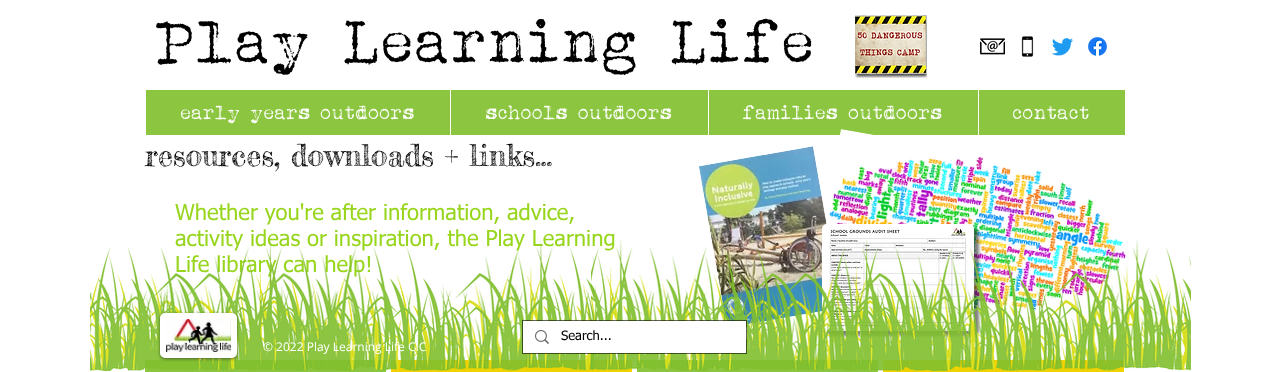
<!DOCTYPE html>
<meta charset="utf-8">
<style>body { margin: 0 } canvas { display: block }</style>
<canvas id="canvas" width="1270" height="372"></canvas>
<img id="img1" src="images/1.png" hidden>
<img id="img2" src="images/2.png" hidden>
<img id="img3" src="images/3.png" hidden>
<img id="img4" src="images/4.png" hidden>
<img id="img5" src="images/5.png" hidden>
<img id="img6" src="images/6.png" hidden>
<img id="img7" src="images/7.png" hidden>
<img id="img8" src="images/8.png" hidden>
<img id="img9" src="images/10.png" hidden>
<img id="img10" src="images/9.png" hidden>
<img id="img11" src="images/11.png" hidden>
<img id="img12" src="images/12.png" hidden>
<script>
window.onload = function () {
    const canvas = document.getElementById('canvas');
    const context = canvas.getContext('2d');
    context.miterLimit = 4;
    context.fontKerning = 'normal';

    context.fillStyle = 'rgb(255, 255, 255)';
    context.fillRect(0, 0, 1270, 372);
    context.drawImage(document.getElementById('img1'), 855, 15, 72, 63);
    context.drawImage(document.getElementById('img2'), 980, 38, 25, 17);
    context.drawImage(document.getElementById('img3'), 1021, 36, 13, 21);
    context.drawImage(document.getElementById('img4'), 1052, 38, 21, 18);
    context.drawImage(document.getElementById('img5'), 1088, 37, 19, 19);
    context.fillStyle = 'rgb(140, 198, 64)';
    context.fillRect(146, 90, 979, 45);
    context.fillStyle = 'rgb(255, 255, 255)';
    context.fillRect(450, 90, 1, 45);
    context.fillRect(708, 90, 1, 45);
    context.fillRect(978, 90, 1, 45);
    context.drawImage(document.getElementById('img6'), 699, 146, 128, 179);
    context.drawImage(document.getElementById('img7'), 829, 129, 297, 183);
    context.fillStyle = 'rgba(0, 0, 0, 0.5)';
    context.filter = 'blur(1.5px)';
    context.beginPath();
    context.roundRect(827, 229, 152, 107, 5);
    context.fill();
    context.filter = 'none';
    context.fillStyle = 'rgb(255, 255, 255)';
    context.beginPath();
    context.roundRect(823, 225, 150, 105, 4);
    context.fill();
    context.strokeStyle = 'rgb(255, 255, 255)';
    context.lineWidth = 2;
    context.stroke();
    context.drawImage(document.getElementById('img8'), 828, 226, 140, 102);
    context.fillStyle = 'rgb(140, 198, 64)';
    context.fillRect(145, 360, 241, 12);
    context.fillStyle = 'rgb(238, 210, 2)';
    context.fillRect(391, 360, 241, 12);
    context.fillStyle = 'rgb(140, 198, 64)';
    context.fillRect(637, 360, 241, 12);
    context.fillStyle = 'rgb(238, 210, 2)';
    context.fillRect(883, 360, 241, 12);
    context.fillStyle = 'rgb(255, 255, 255)';
    context.fillRect(860, 321, 1, 45);
    context.fillRect(461, 360, 1, 6);
    context.font = '62px "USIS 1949"';
    context.fillStyle = 'rgb(0, 0, 0)';
    context.fillText('Play Learning Life', 156, 62);
    context.font = '20px "USIS 1949"';
    context.fillStyle = 'rgb(255, 255, 255)';
    context.fillText('early years outdoors', 181, 119);
    context.fillText('schools outdoors', 486, 119);
    context.fillText('families outdoors', 743, 119);
    context.fillText('contact', 1013, 119);
    context.font = '30px Fredericka the Great';
    context.fillStyle = 'rgb(0, 0, 0)';
    context.fillText('resources, downloads + links...', 145, 166);
    context.font = '22px tahoma';
    context.fillStyle = 'rgb(152, 214, 30)';
    context.fillText('Whether you\'re after information, advice,', 175, 220);
    context.fillText('activity ideas or inspiration, the Play Learning', 175, 246);
    context.fillText('Life library can help!', 175, 272);
    context.drawImage(document.getElementById('img9'), 591, 239, 600, 132);
    context.drawImage(document.getElementById('img10'), 90, 239, 504, 132);
    context.fillStyle = 'rgba(0, 0, 0, 0.5)';
    context.filter = 'blur(1.5px)';
    context.beginPath();
    context.roundRect(160, 314, 77, 45, 5);
    context.fill();
    context.filter = 'none';
    context.beginPath();
    context.roundRect(163, 316, 71, 39, 2);
    context.lineWidth = 6;
    context.stroke();
    context.drawImage(document.getElementById('img11'), 166, 319, 65, 33);
    context.strokeStyle = 'rgba(0, 0, 0, 0.6)';
    context.lineWidth = 1;
    context.strokeRect(522.5, 320.5, 224, 33);
    context.fillStyle = 'rgb(255, 255, 255)';
    context.fillRect(523, 321, 223, 32);
    context.drawImage(document.getElementById('img12'), 535, 330, 14, 14);
    context.font = '13px tahoma';
    context.fillStyle = 'rgb(0, 0, 0)';
    context.fillText('Search...', 561, 340);
    context.font = '12px Open Sans';
    context.fillStyle = 'rgb(255, 255, 255)';
    context.fillText('© 2022 Play Learning Life CIC', 263, 351);
};
</script>
